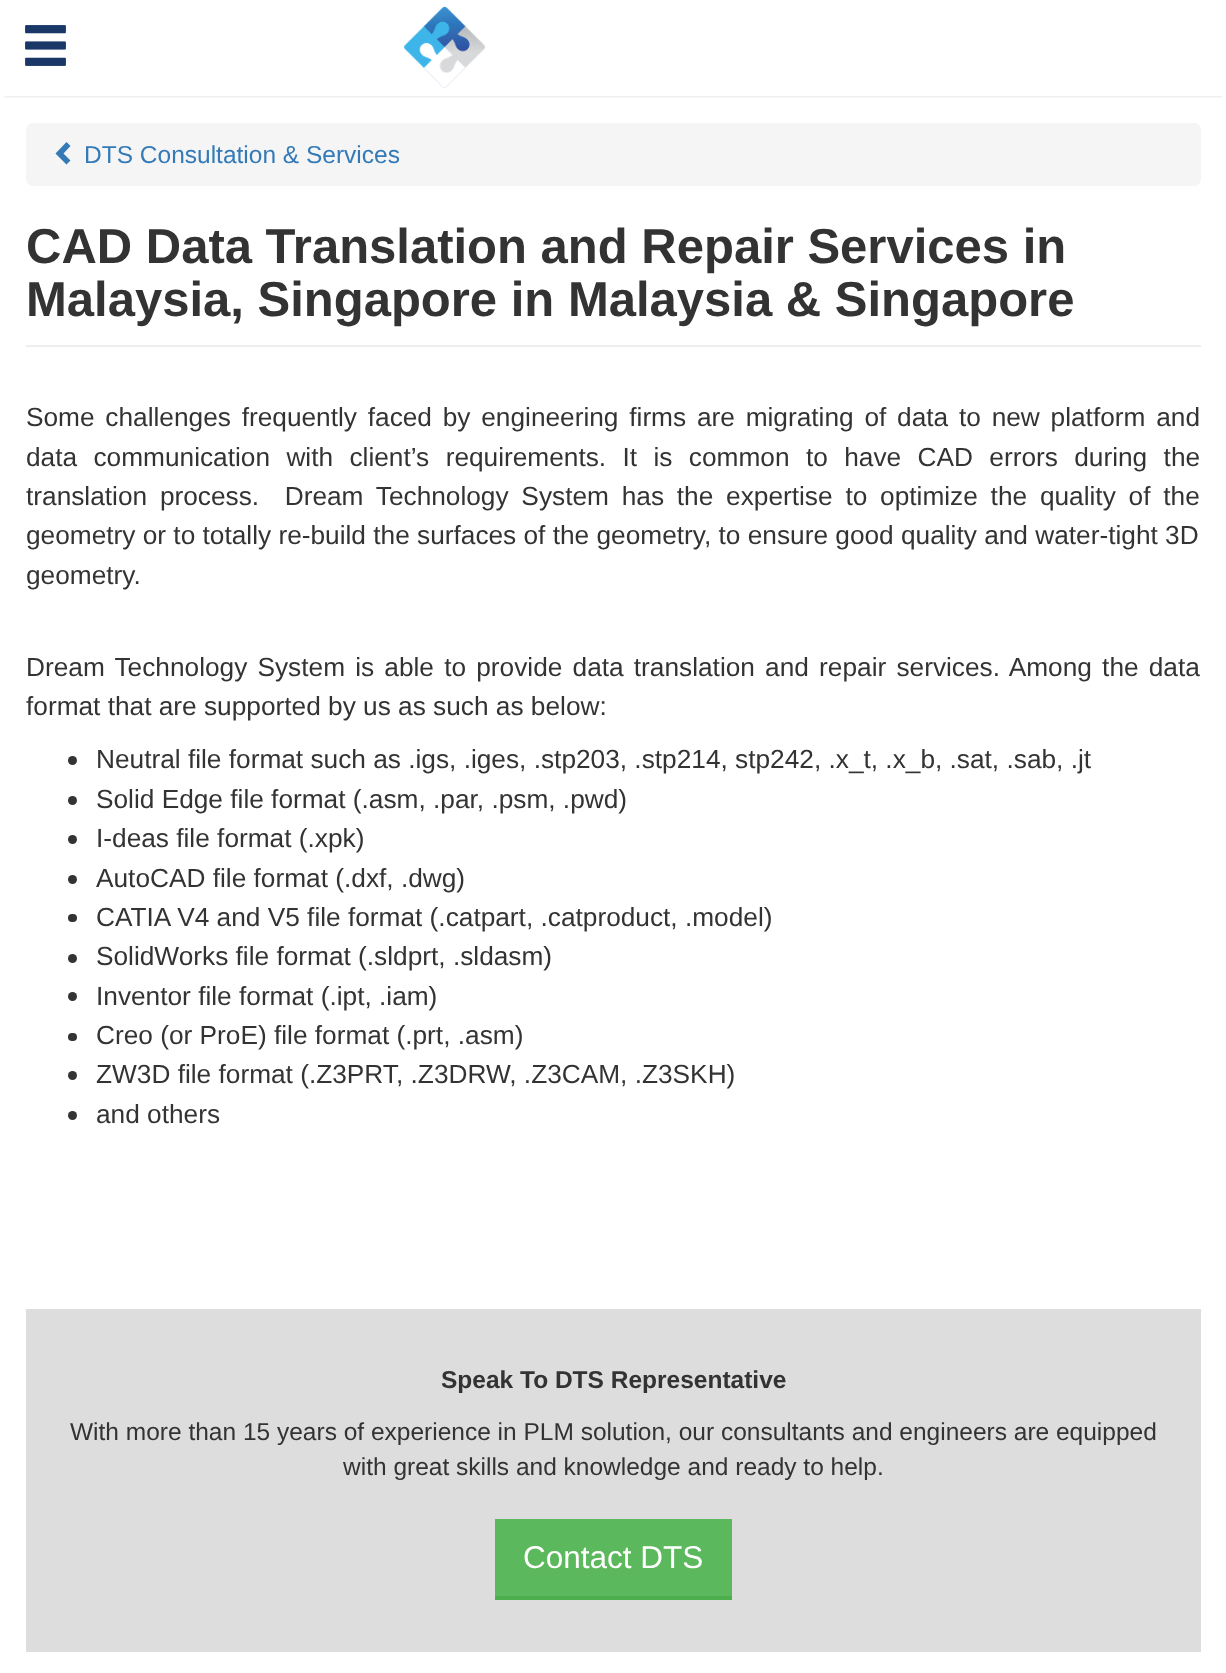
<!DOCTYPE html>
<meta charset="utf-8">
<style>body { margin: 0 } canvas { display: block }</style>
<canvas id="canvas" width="1226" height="1673"></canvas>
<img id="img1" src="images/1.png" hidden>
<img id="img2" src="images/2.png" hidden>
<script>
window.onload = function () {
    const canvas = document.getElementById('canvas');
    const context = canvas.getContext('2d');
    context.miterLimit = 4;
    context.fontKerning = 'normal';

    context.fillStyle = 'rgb(255, 255, 255)';
    context.fillRect(0, 0, 1226, 1673);
    context.save();
    context.beginPath();
    context.rect(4, 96, 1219, 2);
    context.clip();
    context.fillStyle = 'rgba(0, 0, 0, 0.15)';
    context.filter = 'blur(2px)';
    context.beginPath();
    context.rect(4, 7, 1219, 89);
    context.fill();
    context.filter = 'none';
    context.restore();
    context.drawImage(document.getElementById('img1'), 25, 25, 41, 41);
    context.drawImage(document.getElementById('img2'), 404, 6, 82, 83);
    context.fillStyle = 'rgb(245, 245, 245)';
    context.beginPath();
    context.roundRect(26, 123, 1175, 63, 7);
    context.fill();
    context.fillStyle = 'rgb(51, 122, 183)';
    context.beginPath();
    context.moveTo(70.5, 146);
    context.lineTo(63.5, 153.5);
    context.lineTo(70.5, 160.5);
    context.lineTo(66.5, 164.5);
    context.lineTo(55.5, 153.5);
    context.lineTo(66.5, 142);
    context.closePath();
    context.fill();
    context.fillStyle = 'rgb(238, 238, 238)';
    context.fillRect(26, 345, 1175, 2);
    context.fillStyle = 'rgb(51, 51, 51)';
    context.beginPath();
    context.arc(72.5, 760.5, 4.5, 0, 2 * Math.PI);
    context.fill();
    context.beginPath();
    context.arc(72.5, 800.5, 4.5, 0, 2 * Math.PI);
    context.fill();
    context.beginPath();
    context.arc(72.5, 839.5, 4.5, 0, 2 * Math.PI);
    context.fill();
    context.beginPath();
    context.arc(72.5, 879.5, 4.5, 0, 2 * Math.PI);
    context.fill();
    context.beginPath();
    context.roundRect(68, 914, 9, 8, 4);
    context.fill();
    context.beginPath();
    context.arc(72.5, 958.5, 4.5, 0, 2 * Math.PI);
    context.fill();
    context.beginPath();
    context.arc(72.5, 996.5, 4.5, 0, 2 * Math.PI);
    context.fill();
    context.beginPath();
    context.roundRect(68, 1033, 9, 8, 4);
    context.fill();
    context.beginPath();
    context.arc(72.5, 1075.5, 4.5, 0, 2 * Math.PI);
    context.fill();
    context.beginPath();
    context.arc(72.5, 1115.5, 4.5, 0, 2 * Math.PI);
    context.fill();
    context.fillStyle = 'rgb(221, 221, 221)';
    context.fillRect(26, 1309, 1175, 343);
    context.fillStyle = 'rgb(92, 184, 92)';
    context.fillRect(495, 1519, 237, 77);
    context.fillStyle = 'rgb(76, 174, 76)';
    context.fillRect(495, 1596, 237, 4);
    context.font = '24.5px Liberation Sans';
    context.fillStyle = 'rgb(51, 122, 183)';
    context.fillText('DTS Consultation & Services', 84, 163);
    context.font = 'bold 49px Liberation Sans';
    context.fillStyle = 'rgb(51, 51, 51)';
    context.fillText('CAD Data Translation and Repair Services in', 26, 263);
    context.fillText('Malaysia, Singapore in Malaysia & Singapore', 26, 316);
    context.wordSpacing = '3.5px';
    context.font = '26.25px Liberation Sans';
    context.fillText('Some challenges frequently faced by engineering firms are migrating of data to new platform and', 26, 426);
    context.wordSpacing = '9.1px';
    context.fillText('data communication with client’s requirements. It is common to have CAD errors during the', 26, 466);
    context.wordSpacing = '5.5px';
    context.fillText('translation process.  Dream Technology System has the expertise to optimize the quality of the', 26, 505);
    context.wordSpacing = '0px';
    context.fillText('geometry or to totally re-build the surfaces of the geometry, to ensure good quality and water-tight 3D', 26, 544);
    context.fillText('geometry.', 26, 584);
    context.wordSpacing = '2.9px';
    context.fillText('Dream Technology System is able to provide data translation and repair services. Among the data', 26, 676);
    context.wordSpacing = '0px';
    context.fillText('format that are supported by us as such as below:', 26, 715);
    context.fillText('Neutral file format such as .igs, .iges, .stp203, .stp214, stp242, .x_t, .x_b, .sat, .sab, .jt', 96, 768);
    context.fillText('Solid Edge file format (.asm, .par, .psm, .pwd)', 96, 808);
    context.fillText('I-deas file format (.xpk)', 96, 847);
    context.fillText('AutoCAD file format (.dxf, .dwg)', 96, 887);
    context.fillText('CATIA V4 and V5 file format (.catpart, .catproduct, .model)', 96, 926);
    context.fillText('SolidWorks file format (.sldprt, .sldasm)', 96, 965);
    context.fillText('Inventor file format (.ipt, .iam)', 96, 1005);
    context.fillText('Creo (or ProE) file format (.prt, .asm)', 96, 1044);
    context.fillText('ZW3D file format (.Z3PRT, .Z3DRW, .Z3CAM, .Z3SKH)', 96, 1083);
    context.fillText('and others', 96, 1123);
    context.font = 'bold 24.5px Liberation Sans';
    context.fillText('Speak To DTS Representative', 441, 1388);
    context.font = '24.5px Liberation Sans';
    context.fillText('With more than 15 years of experience in PLM solution, our consultants and engineers are equipped', 70, 1440);
    context.fillText('with great skills and knowledge and ready to help.', 343, 1475);
    context.font = '31.5px Liberation Sans';
    context.fillStyle = 'rgb(255, 255, 255)';
    context.fillText('Contact DTS', 523, 1568);
};
</script>
